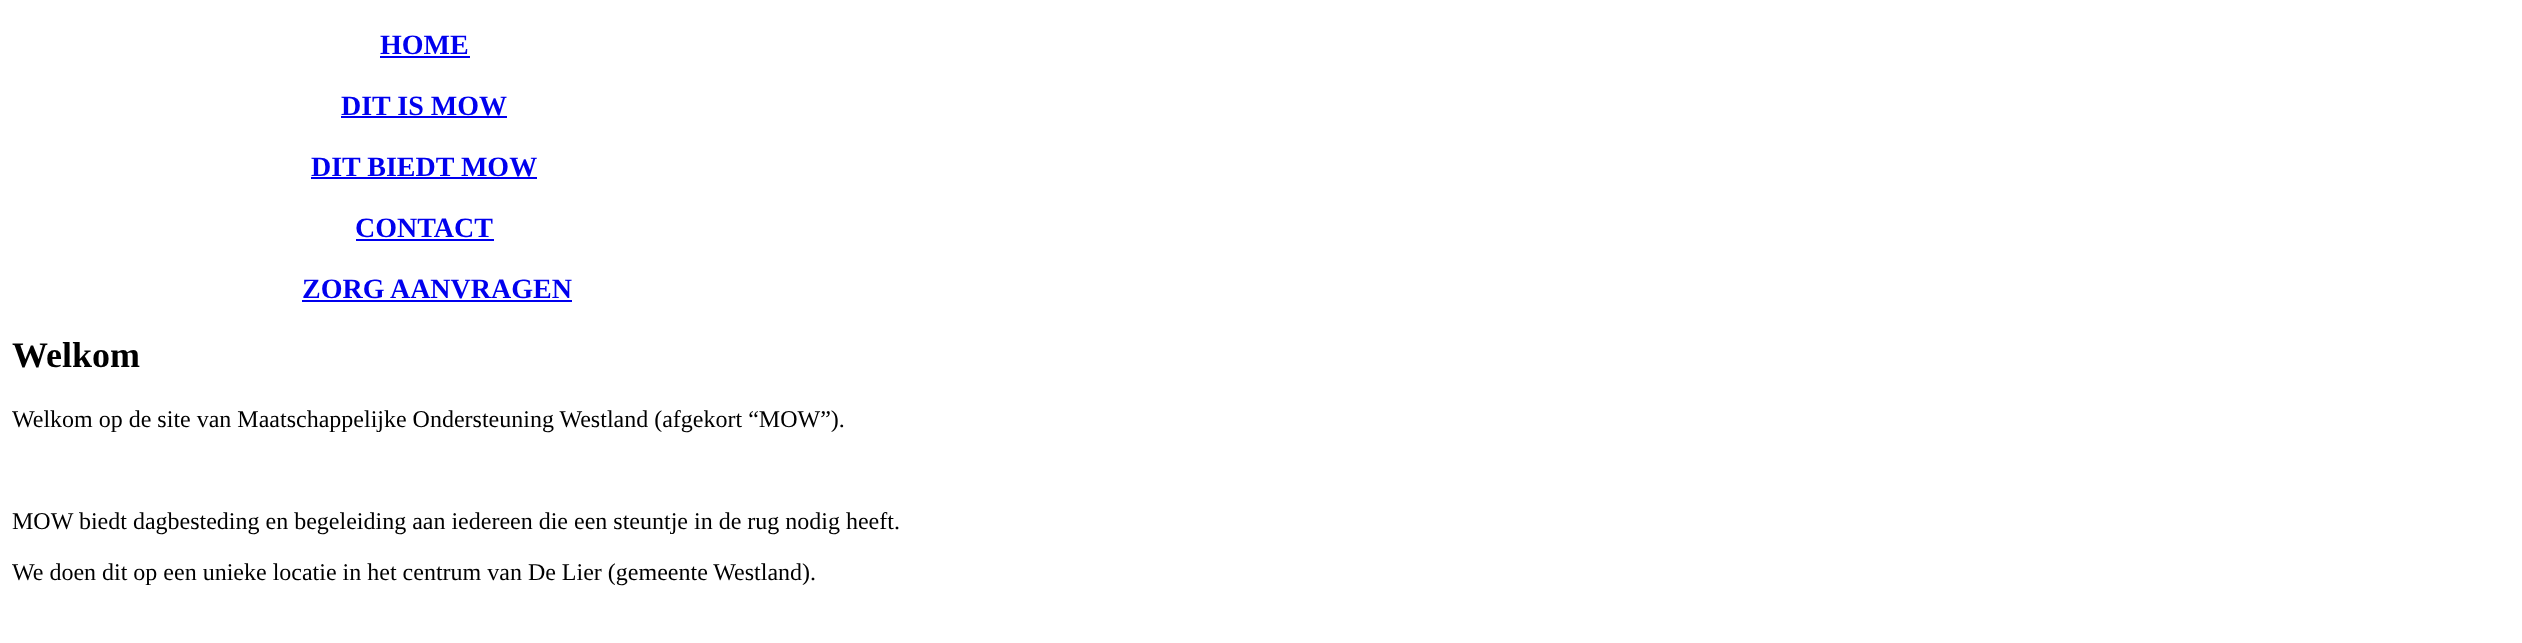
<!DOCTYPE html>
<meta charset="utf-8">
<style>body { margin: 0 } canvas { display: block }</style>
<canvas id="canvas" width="2522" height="643"></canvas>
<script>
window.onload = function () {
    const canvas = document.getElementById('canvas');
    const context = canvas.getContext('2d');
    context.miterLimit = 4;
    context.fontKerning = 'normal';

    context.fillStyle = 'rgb(255, 255, 255)';
    context.fillRect(0, 0, 2522, 643);
    context.fillStyle = 'rgb(0, 0, 238)';
    context.fillRect(380, 56, 90, 2);
    context.fillRect(341, 116, 166, 2);
    context.fillRect(311, 177, 226, 2);
    context.fillRect(356, 239, 138, 2);
    context.fillRect(302, 300, 270, 2);
    context.font = 'bold 28px Liberation Serif';
    context.fillText('HOME', 380, 54);
    context.fillText('DIT IS MOW', 341, 115);
    context.fillText('DIT BIEDT MOW', 311, 176);
    context.fillText('CONTACT', 355, 237);
    context.fillText('ZORG AANVRAGEN', 302, 298);
    context.font = 'bold 36px Liberation Serif';
    context.fillStyle = 'rgb(0, 0, 0)';
    context.fillText('Welkom', 12, 367);
    context.font = '24px Liberation Serif';
    context.fillText('Welkom op de site van Maatschappelijke Ondersteuning Westland (afgekort “MOW”).', 12, 427);
    context.fillText('MOW biedt dagbesteding en begeleiding aan iedereen die een steuntje in de rug nodig heeft.', 12, 529);
    context.fillText('We doen dit op een unieke locatie in het centrum van De Lier (gemeente Westland).', 12, 580);
};
</script>
